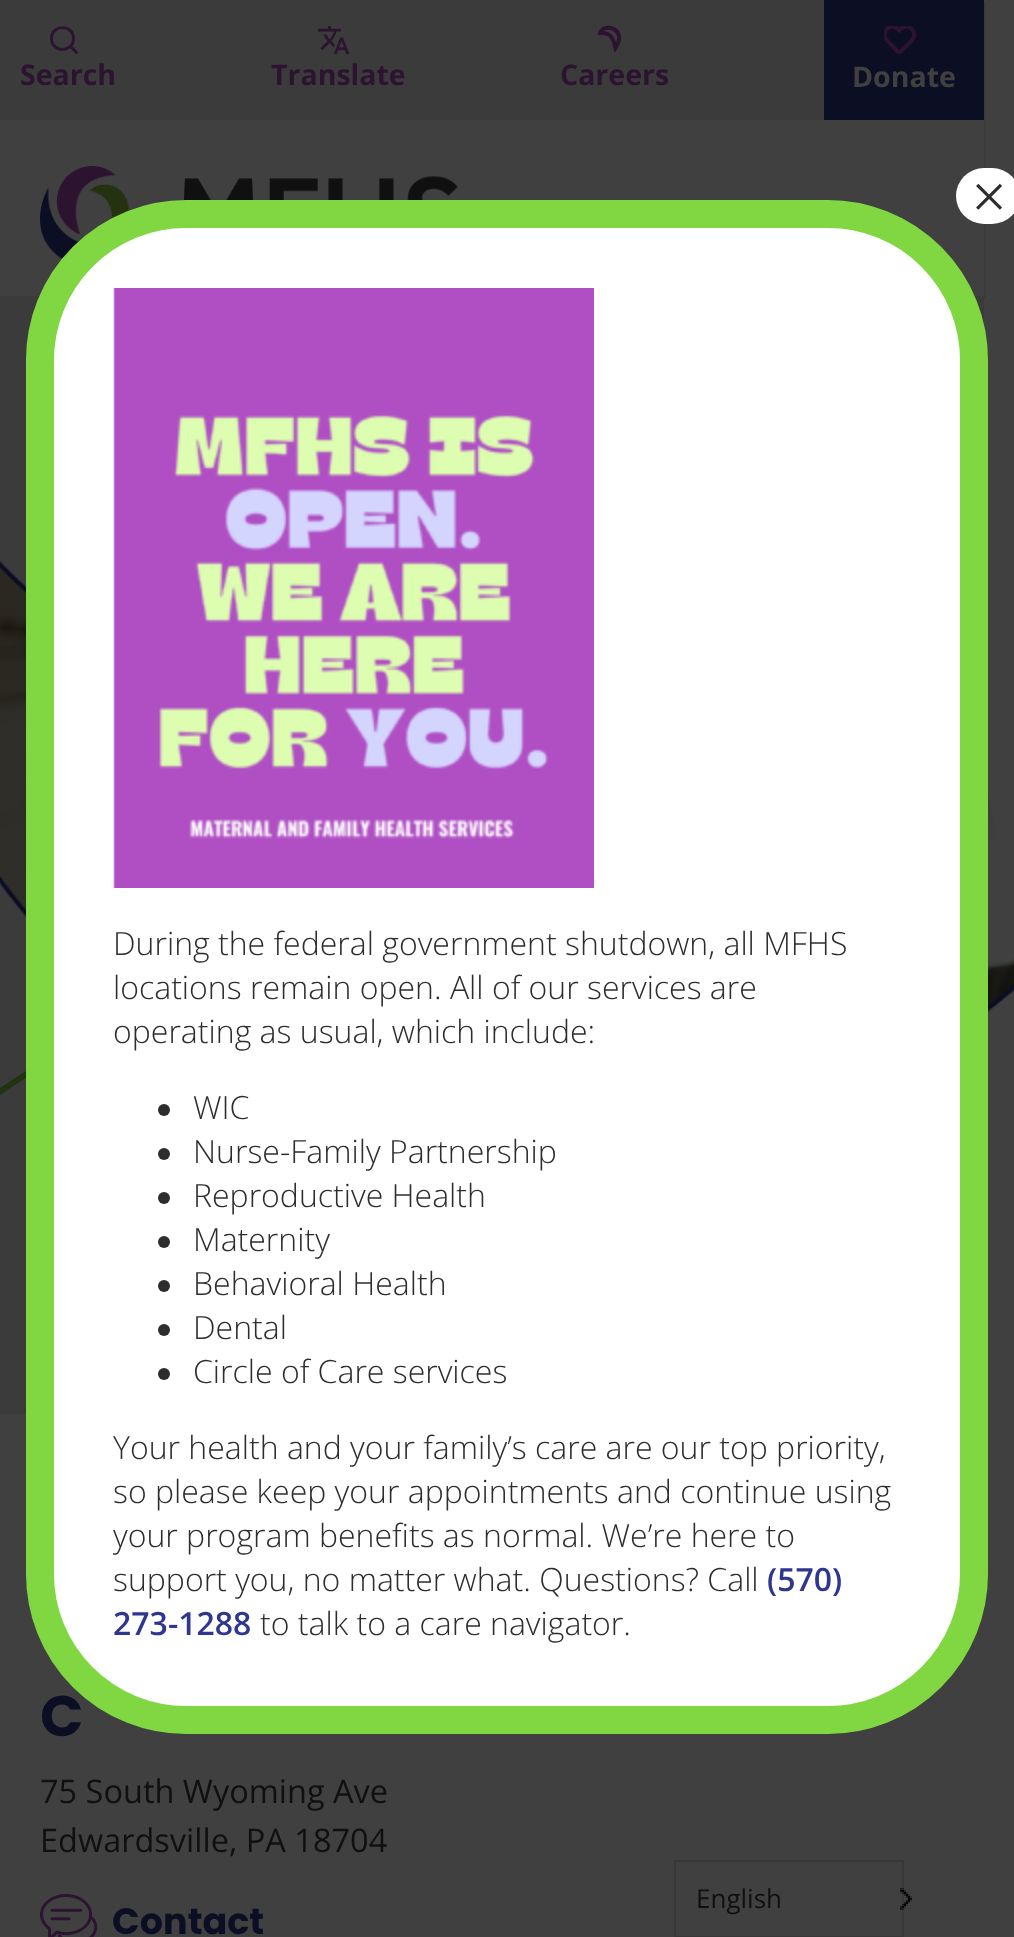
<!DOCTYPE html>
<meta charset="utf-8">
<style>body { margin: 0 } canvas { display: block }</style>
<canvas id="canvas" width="1014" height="1937"></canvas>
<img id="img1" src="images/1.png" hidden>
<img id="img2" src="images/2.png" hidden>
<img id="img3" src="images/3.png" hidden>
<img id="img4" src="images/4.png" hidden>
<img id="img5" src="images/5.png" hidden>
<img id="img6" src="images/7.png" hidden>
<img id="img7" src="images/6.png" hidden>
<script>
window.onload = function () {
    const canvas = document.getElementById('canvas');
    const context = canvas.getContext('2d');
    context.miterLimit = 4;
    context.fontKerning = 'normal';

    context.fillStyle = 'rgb(64, 64, 64)';
    context.fillRect(0, 0, 1014, 1937);
    context.fillStyle = 'rgb(59, 59, 59)';
    context.fillRect(0, 296, 984, 1118);
    context.beginPath();
    context.moveTo(2, 296);
    context.lineTo(2, 298);
    context.lineTo(986, 298);
    context.lineTo(986, 2);
    context.lineTo(984, 2);
    context.lineTo(984, 296);
    context.closePath();
    context.fill();
    context.fillRect(0, 0, 824, 120);
    context.beginPath();
    context.moveTo(73.5, 38.5);
    context.bezierCurveTo(73.5, 53, 51.5, 53, 51.5, 38.5);
    context.bezierCurveTo(51.5, 24, 73.5, 24, 73.5, 38.5);
    context.closePath();
    context.moveTo(76.5, 52.5);
    context.lineTo(70.5, 46.5);
    context.strokeStyle = 'rgb(44, 20, 49)';
    context.lineWidth = 2.9;
    context.lineCap = 'round';
    context.lineJoin = 'round';
    context.stroke();
    context.drawImage(document.getElementById('img1'), 318, 26, 32, 28);
    context.save();
    context.beginPath();
    context.rect(598, 24, 26, 28);
    context.clip();
    context.beginPath();
    context.moveTo(600, 33);
    context.bezierCurveTo(607.5, 32.5, 612.5, 34, 615.5, 48);
    context.bezierCurveTo(628, 29.5, 604.5, 21.5, 600, 33);
    context.closePath();
    context.lineWidth = 4;
    context.lineCap = 'butt';
    context.lineJoin = 'miter';
    context.stroke();
    context.restore();
    context.fillStyle = 'rgb(12, 14, 36)';
    context.fillRect(824, 0, 160, 120);
    context.drawImage(document.getElementById('img2'), 884, 26, 32, 28);
    context.drawImage(document.getElementById('img3'), 40, 166, 418, 94);
    context.save();
    context.beginPath();
    context.moveTo(-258, 580);
    context.lineTo(1008.5, 669);
    context.lineTo(957, 1407);
    context.lineTo(-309.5, 1318.5);
    context.closePath();
    context.clip();
    context.beginPath();
    context.moveTo(894, 860);
    context.lineTo(892.5, 858.5);
    context.bezierCurveTo(606, 530.5, 153, 594, -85, 829);
    context.lineTo(-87, 827);
    context.lineTo(-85, 829);
    context.bezierCurveTo(-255.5, 997.5, -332, 1267, -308, 1529);
    context.bezierCurveTo(-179.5, 1142, 99.5, 978, 379, 965.5);
    context.bezierCurveTo(658, 953.5, 937, 1092, 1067.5, 1311);
    context.bezierCurveTo(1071, 1151.5, 1006.5, 990, 894, 860);
    context.closePath();
    context.strokeStyle = 'rgb(35, 50, 16)';
    context.lineWidth = 5.8;
    context.lineCap = 'butt';
    context.lineJoin = 'miter';
    context.stroke();
    context.restore();
    context.drawImage(document.getElementById('img4'), 0, 561, 1014, 451);
    context.drawImage(document.getElementById('img5'), 40, 1894, 58, 43);
    context.strokeStyle = 'rgb(56, 56, 56)';
    context.lineWidth = 2;
    context.lineJoin = 'miter';
    context.strokeRect(675, 1861, 228, 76);
    context.drawImage(document.getElementById('img6'), 900, 1888, 12, 22);
    context.font = 'bold 28.5px Open Sans';
    context.fillStyle = 'rgb(44, 20, 49)';
    context.fillText('Search', 20, 85);
    context.fillText('Translate', 271, 85);
    context.fillText('Careers', 560, 85);
    context.fillStyle = 'rgb(64, 64, 64)';
    context.fillText('Donate', 852, 87);
    context.font = 'bold 57px Poppins';
    context.fillStyle = 'rgb(12, 14, 36)';
    context.fillText('C', 40, 1736);
    context.font = '32.5px Open Sans';
    context.fillStyle = 'rgb(16, 16, 17)';
    context.fillText('75 South Wyoming Ave', 40, 1803);
    context.fillText('Edwardsville, PA 18704', 40, 1852);
    context.font = 'bold 36.5px Poppins';
    context.fillStyle = 'rgb(12, 14, 36)';
    context.fillText('Contact', 112, 1934);
    context.fillStyle = 'rgb(255, 255, 255)';
    context.beginPath();
    context.roundRect(40, 214, 934, 1506, 146);
    context.fill();
    context.strokeStyle = 'rgb(129, 215, 66)';
    context.lineWidth = 28;
    context.stroke();
    context.beginPath();
    context.roundRect(956, 168, 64, 56, 28);
    context.fill();
    context.font = '64px Liberation Serif';
    context.fillStyle = 'rgb(45, 45, 45)';
    context.fillText('×', 971, 218);
    context.drawImage(document.getElementById('img7'), 113, 288, 481, 600);
    context.font = '300 32px Open Sans';
    context.fillText('During the federal government shutdown, all MFHS', 113, 955);
    context.fillText('locations remain open. All of our services are', 113, 999);
    context.fillText('operating as usual, which include:', 113, 1043);
    context.beginPath();
    context.arc(164, 1110, 6, 0, 2 * Math.PI);
    context.fill();
    context.fillText('WIC', 193, 1119);
    context.beginPath();
    context.arc(164, 1154, 6, 0, 2 * Math.PI);
    context.fill();
    context.fillText('Nurse-Family Partnership', 193, 1163);
    context.beginPath();
    context.arc(164, 1198, 6, 0, 2 * Math.PI);
    context.fill();
    context.fillText('Reproductive Health', 193, 1207);
    context.beginPath();
    context.arc(164, 1242, 6, 0, 2 * Math.PI);
    context.fill();
    context.fillText('Maternity', 193, 1251);
    context.beginPath();
    context.arc(164, 1286, 6, 0, 2 * Math.PI);
    context.fill();
    context.fillText('Behavioral Health', 193, 1295);
    context.beginPath();
    context.arc(164, 1330, 6, 0, 2 * Math.PI);
    context.fill();
    context.fillText('Dental', 193, 1339);
    context.beginPath();
    context.arc(164, 1374, 6, 0, 2 * Math.PI);
    context.fill();
    context.fillText('Circle of Care services', 193, 1383);
    context.fillText('Your health and your family’s care are our top priority,', 113, 1459);
    context.fillText('so please keep your appointments and continue using', 113, 1503);
    context.fillText('your program benefits as normal. We’re here to', 113, 1547);
    context.fillText('support you, no matter what. Questions? Call', 113, 1591);
    context.font = '600 32px Open Sans';
    context.fillStyle = 'rgb(46, 54, 143)';
    context.fillText('(570)', 767, 1591);
    context.fillText('273-1288', 113, 1635);
    context.font = '300 32px Open Sans';
    context.fillStyle = 'rgb(45, 45, 45)';
    context.fillText('to talk to a care navigator.', 260, 1635);
    context.font = '26px Open Sans';
    context.fillStyle = 'rgb(16, 16, 17)';
    context.fillText('English', 696, 1908);
};
</script>
